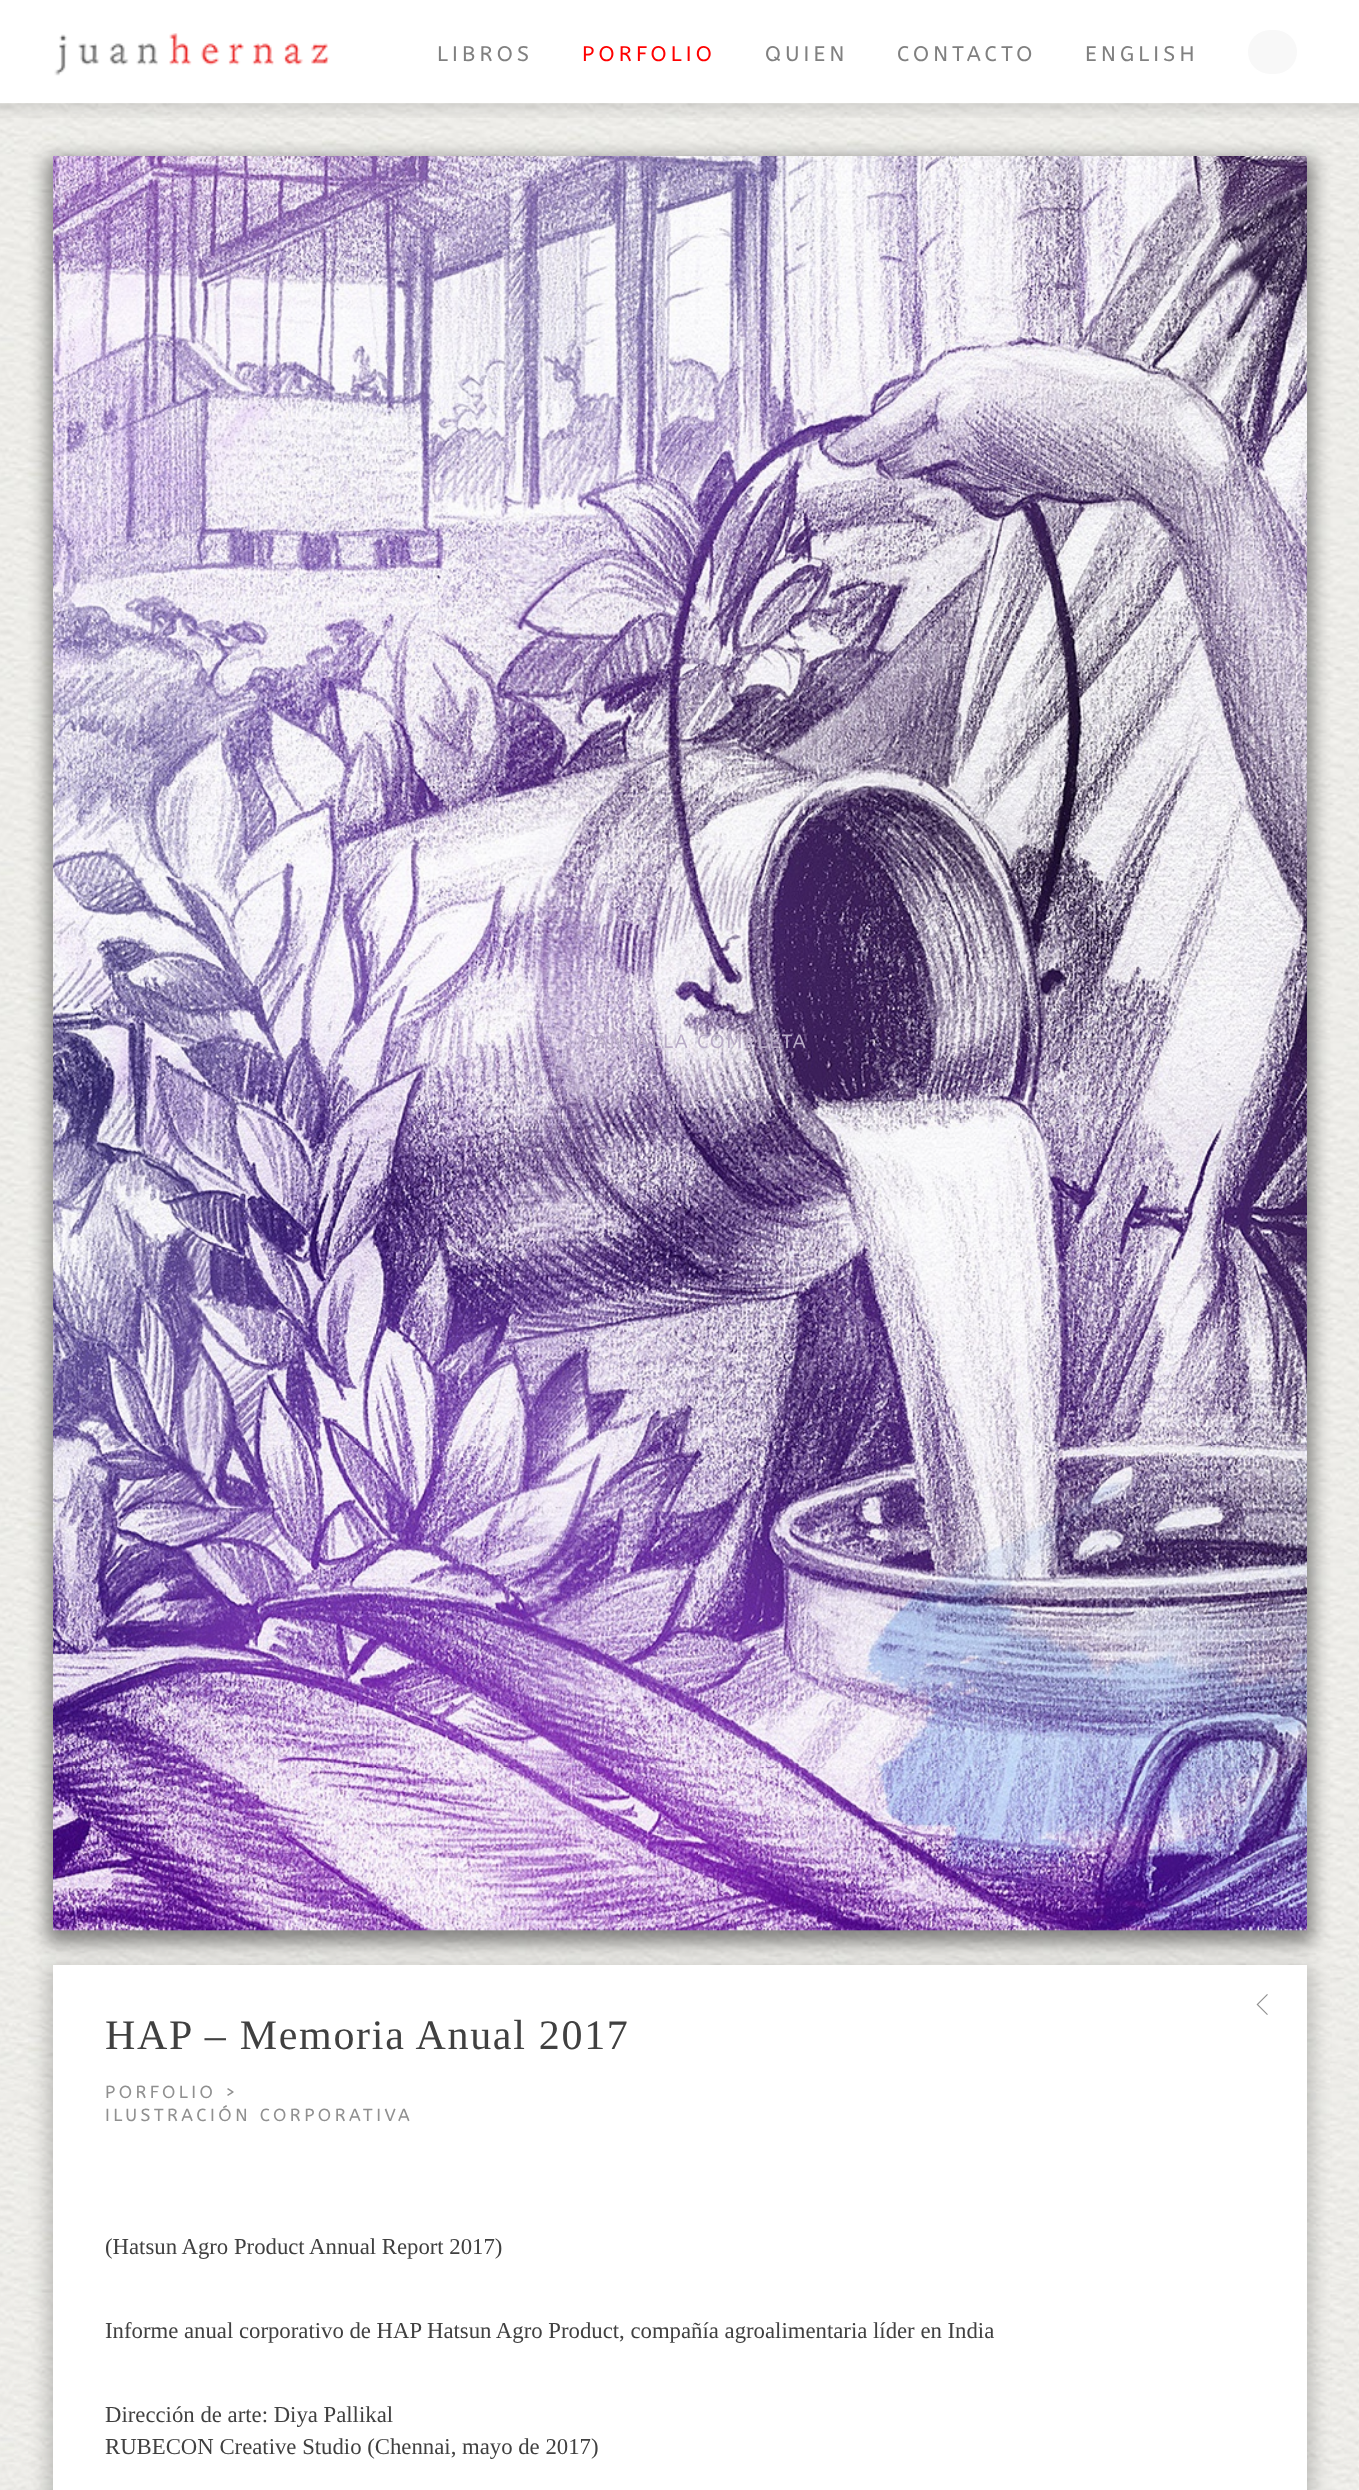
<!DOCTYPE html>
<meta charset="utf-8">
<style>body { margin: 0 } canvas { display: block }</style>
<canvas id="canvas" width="1359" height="2490"></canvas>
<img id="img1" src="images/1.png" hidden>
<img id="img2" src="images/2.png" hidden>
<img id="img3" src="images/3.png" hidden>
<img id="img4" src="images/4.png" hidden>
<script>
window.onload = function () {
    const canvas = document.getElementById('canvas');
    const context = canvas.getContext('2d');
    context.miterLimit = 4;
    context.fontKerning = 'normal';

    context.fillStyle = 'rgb(255, 255, 255)';
    context.fillRect(0, 0, 1359, 2490);
    context.drawImage(document.getElementById('img1'), 0, 103, 1359, 2387);
    context.drawImage(document.getElementById('img2'), 54, 33, 276, 43);
    context.fillStyle = 'rgb(248, 248, 248)';
    context.beginPath();
    context.roundRect(1248, 30, 49, 44, 22);
    context.fill();
    context.drawImage(document.getElementById('img3'), 0, 103, 1359, 15);
    context.fillStyle = 'rgba(0, 0, 0, 0.45)';
    context.filter = 'blur(9px)';
    context.beginPath();
    context.rect(47, 158, 1266, 1785);
    context.fill();
    context.filter = 'none';
    context.drawImage(document.getElementById('img4'), 53, 156, 1254, 1775);
    context.fillStyle = 'rgba(0, 0, 0, 0.2)';
    context.filter = 'blur(9px)';
    context.beginPath();
    context.rect(47, 1967, 1266, 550);
    context.fill();
    context.filter = 'none';
    context.fillStyle = 'rgb(255, 255, 255)';
    context.fillRect(53, 1965, 1254, 525);
    context.letterSpacing = '4.25px';
    context.font = '21px ABeeZee';
    context.fillStyle = 'rgb(128, 128, 128)';
    context.fillText('LIBROS', 437, 61);
    context.fillStyle = 'rgb(255, 0, 0)';
    context.fillText('PORFOLIO', 582, 61);
    context.fillStyle = 'rgb(128, 128, 128)';
    context.fillText('QUIEN', 765, 61);
    context.fillText('CONTACTO', 897, 61);
    context.fillText('ENGLISH', 1085, 61);
    context.letterSpacing = '1.9px';
    context.font = '19.25px ABeeZee';
    context.fillStyle = 'rgb(184, 171, 198)';
    context.fillText('PANTALLA COMPLETA', 583, 1048);
    context.letterSpacing = '0px';
    context.font = 'bold 25px Liberation Sans';
    context.fillStyle = 'rgb(144, 144, 144)';
    context.save();
    context.translate(1253, 2001);
    context.rotate(45 * Math.PI / 180);
    context.fillText('∟', 0, 0);
    context.restore();
    context.letterSpacing = '1.7px';
    context.font = '42px Tinos';
    context.fillStyle = 'rgb(64, 64, 64)';
    context.fillText('HAP – Memoria Anual 2017', 105, 2049);
    context.letterSpacing = '3.5px';
    context.font = '17.5px ABeeZee';
    context.fillStyle = 'rgb(144, 144, 144)';
    context.fillText('PORFOLIO >', 105, 2098);
    context.fillText('ILUSTRACIÓN CORPORATIVA', 105, 2121);
    context.letterSpacing = '0px';
    context.font = '22.75px Tinos';
    context.fillStyle = 'rgb(64, 64, 64)';
    context.fillText('(Hatsun Agro Product Annual Report 2017)', 105, 2254);
    context.fillText('Informe anual corporativo de HAP Hatsun Agro Product, compañía agroalimentaria líder en India', 105, 2338);
    context.fillText('Dirección de arte: Diya Pallikal', 105, 2422);
    context.fillText('RUBECON Creative Studio (Chennai, mayo de 2017)', 105, 2454);
};
</script>
